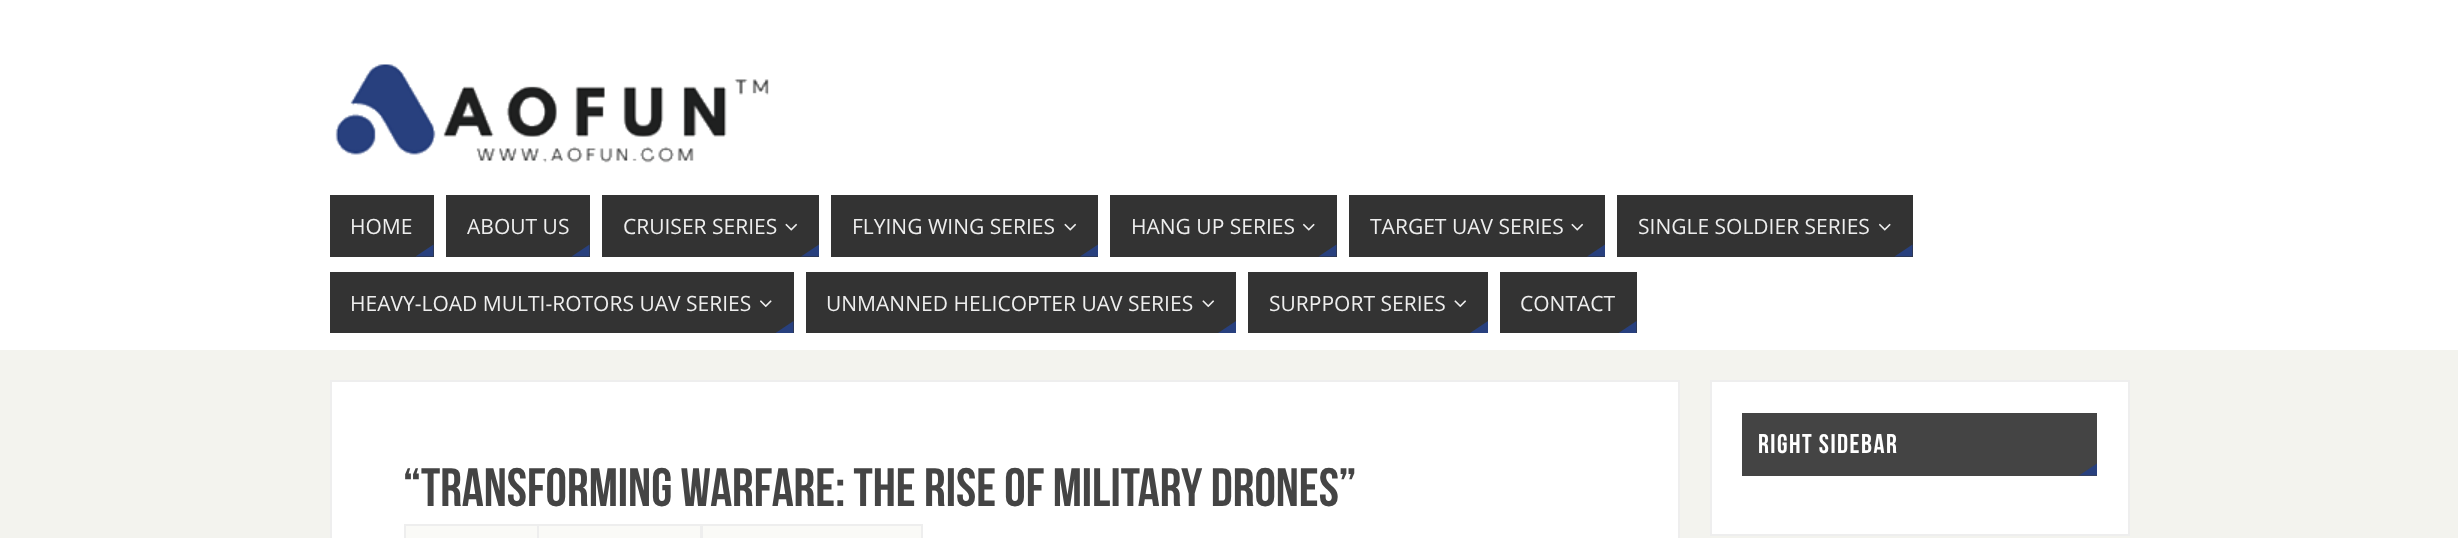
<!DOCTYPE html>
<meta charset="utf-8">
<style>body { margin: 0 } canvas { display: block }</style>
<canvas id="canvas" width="2458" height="538"></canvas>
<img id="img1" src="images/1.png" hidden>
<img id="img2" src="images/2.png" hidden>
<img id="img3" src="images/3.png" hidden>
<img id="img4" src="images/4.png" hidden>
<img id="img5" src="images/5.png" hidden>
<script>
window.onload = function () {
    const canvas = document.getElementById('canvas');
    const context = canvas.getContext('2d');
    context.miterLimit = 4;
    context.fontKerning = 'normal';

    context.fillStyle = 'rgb(243, 243, 238)';
    context.fillRect(0, 0, 2458, 538);
    context.fillStyle = 'rgb(255, 255, 255)';
    context.fillRect(0, 0, 2458, 350);
    context.drawImage(document.getElementById('img1'), 335, 64, 434, 99);
    context.fillStyle = 'rgb(51, 51, 51)';
    context.fillRect(330, 195, 104, 62);
    context.fillStyle = 'rgb(40, 64, 126)';
    context.beginPath();
    context.moveTo(433.5, 256.5);
    context.lineTo(415.5, 256.5);
    context.lineTo(433.5, 244.5);
    context.closePath();
    context.fill();
    context.fillStyle = 'rgb(51, 51, 51)';
    context.fillRect(446, 195, 144, 62);
    context.fillStyle = 'rgb(40, 64, 126)';
    context.beginPath();
    context.moveTo(589.5, 256.5);
    context.lineTo(571.5, 256.5);
    context.lineTo(589.5, 244.5);
    context.closePath();
    context.fill();
    context.fillStyle = 'rgb(51, 51, 51)';
    context.fillRect(602, 195, 217, 62);
    context.drawImage(document.getElementById('img2'), 785, 223, 13, 8);
    context.fillStyle = 'rgb(40, 64, 126)';
    context.beginPath();
    context.moveTo(819, 256.5);
    context.lineTo(801, 256.5);
    context.lineTo(819, 244.5);
    context.closePath();
    context.fill();
    context.fillStyle = 'rgb(51, 51, 51)';
    context.fillRect(831, 195, 267, 62);
    context.drawImage(document.getElementById('img2'), 1064, 223, 13, 8);
    context.fillStyle = 'rgb(40, 64, 126)';
    context.beginPath();
    context.moveTo(1098, 256.5);
    context.lineTo(1080, 256.5);
    context.lineTo(1098, 244.5);
    context.closePath();
    context.fill();
    context.fillStyle = 'rgb(51, 51, 51)';
    context.fillRect(1110, 195, 227, 62);
    context.drawImage(document.getElementById('img3'), 1303, 223, 12, 8);
    context.fillStyle = 'rgb(40, 64, 126)';
    context.beginPath();
    context.moveTo(1336.5, 256.5);
    context.lineTo(1318.5, 256.5);
    context.lineTo(1336.5, 244.5);
    context.closePath();
    context.fill();
    context.fillStyle = 'rgb(51, 51, 51)';
    context.fillRect(1349, 195, 256, 62);
    context.drawImage(document.getElementById('img2'), 1571, 223, 13, 8);
    context.fillStyle = 'rgb(40, 64, 126)';
    context.beginPath();
    context.moveTo(1605, 256.5);
    context.lineTo(1587, 256.5);
    context.lineTo(1605, 244.5);
    context.closePath();
    context.fill();
    context.fillStyle = 'rgb(51, 51, 51)';
    context.fillRect(1617, 195, 296, 62);
    context.drawImage(document.getElementById('img3'), 1879, 223, 12, 8);
    context.fillStyle = 'rgb(40, 64, 126)';
    context.beginPath();
    context.moveTo(1912.5, 256.5);
    context.lineTo(1894.5, 256.5);
    context.lineTo(1912.5, 244.5);
    context.closePath();
    context.fill();
    context.fillStyle = 'rgb(51, 51, 51)';
    context.fillRect(330, 272, 464, 61);
    context.drawImage(document.getElementById('img4'), 760, 300, 12, 8);
    context.fillStyle = 'rgb(40, 64, 126)';
    context.beginPath();
    context.moveTo(793.5, 333);
    context.lineTo(775.5, 333);
    context.lineTo(793.5, 321);
    context.closePath();
    context.fill();
    context.fillStyle = 'rgb(51, 51, 51)';
    context.fillRect(806, 272, 430, 61);
    context.drawImage(document.getElementById('img5'), 1202, 300, 13, 8);
    context.fillStyle = 'rgb(40, 64, 126)';
    context.beginPath();
    context.moveTo(1236, 333);
    context.lineTo(1218, 333);
    context.lineTo(1236, 321);
    context.closePath();
    context.fill();
    context.fillStyle = 'rgb(51, 51, 51)';
    context.fillRect(1248, 272, 240, 61);
    context.drawImage(document.getElementById('img5'), 1454, 300, 13, 8);
    context.fillStyle = 'rgb(40, 64, 126)';
    context.beginPath();
    context.moveTo(1488, 333);
    context.lineTo(1470, 333);
    context.lineTo(1488, 321);
    context.closePath();
    context.fill();
    context.fillStyle = 'rgb(51, 51, 51)';
    context.fillRect(1500, 272, 137, 61);
    context.fillStyle = 'rgb(40, 64, 126)';
    context.beginPath();
    context.moveTo(1636.5, 333);
    context.lineTo(1618.5, 333);
    context.lineTo(1636.5, 321);
    context.closePath();
    context.fill();
    context.fillStyle = 'rgb(255, 255, 255)';
    context.beginPath();
    context.rect(1711, 381, 418, 154);
    context.fill();
    context.strokeStyle = 'rgb(238, 238, 238)';
    context.lineWidth = 2;
    context.stroke();
    context.fillStyle = 'rgb(68, 68, 68)';
    context.fillRect(1742, 413, 355, 63);
    context.fillStyle = 'rgb(40, 64, 126)';
    context.beginPath();
    context.moveTo(2097, 475.5);
    context.lineTo(2079, 475.5);
    context.lineTo(2097, 463.5);
    context.closePath();
    context.fill();
    context.fillStyle = 'rgb(255, 255, 255)';
    context.beginPath();
    context.rect(331, 381, 1348, 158);
    context.fill();
    context.stroke();
    context.fillStyle = 'rgb(250, 250, 247)';
    context.beginPath();
    context.rect(405, 525, 133, 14);
    context.fill();
    context.stroke();
    context.beginPath();
    context.rect(538, 525, 163, 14);
    context.fill();
    context.stroke();
    context.beginPath();
    context.rect(702, 525, 220, 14);
    context.fill();
    context.stroke();
    context.font = '21px Open Sans';
    context.fillStyle = 'rgb(238, 238, 238)';
    context.fillText('HOME', 350, 234);
    context.fillText('ABOUT US', 467, 234);
    context.fillText('CRUISER SERIES', 623, 234);
    context.fillText('FLYING WING SERIES', 852, 234);
    context.fillText('HANG UP SERIES', 1131, 234);
    context.fillText('TARGET UAV SERIES', 1370, 234);
    context.fillText('SINGLE SOLDIER SERIES', 1638, 234);
    context.fillText('HEAVY-LOAD MULTI-ROTORS UAV SERIES', 350, 311);
    context.fillText('UNMANNED HELICOPTER UAV SERIES', 826, 311);
    context.fillText('SURPPORT SERIES', 1269, 311);
    context.fillText('CONTACT', 1520, 311);
    context.letterSpacing = '1.5px';
    context.font = '27px Bebas Neue';
    context.fillStyle = 'rgb(255, 255, 255)';
    context.fillText('RIGHT SIDEBAR', 1758, 453);
    context.letterSpacing = '0px';
    context.font = '54px Bebas Neue';
    context.fillStyle = 'rgb(68, 68, 68)';
    context.fillText('“Transforming Warfare: The Rise of Military Drones”', 403, 506);
};
</script>
